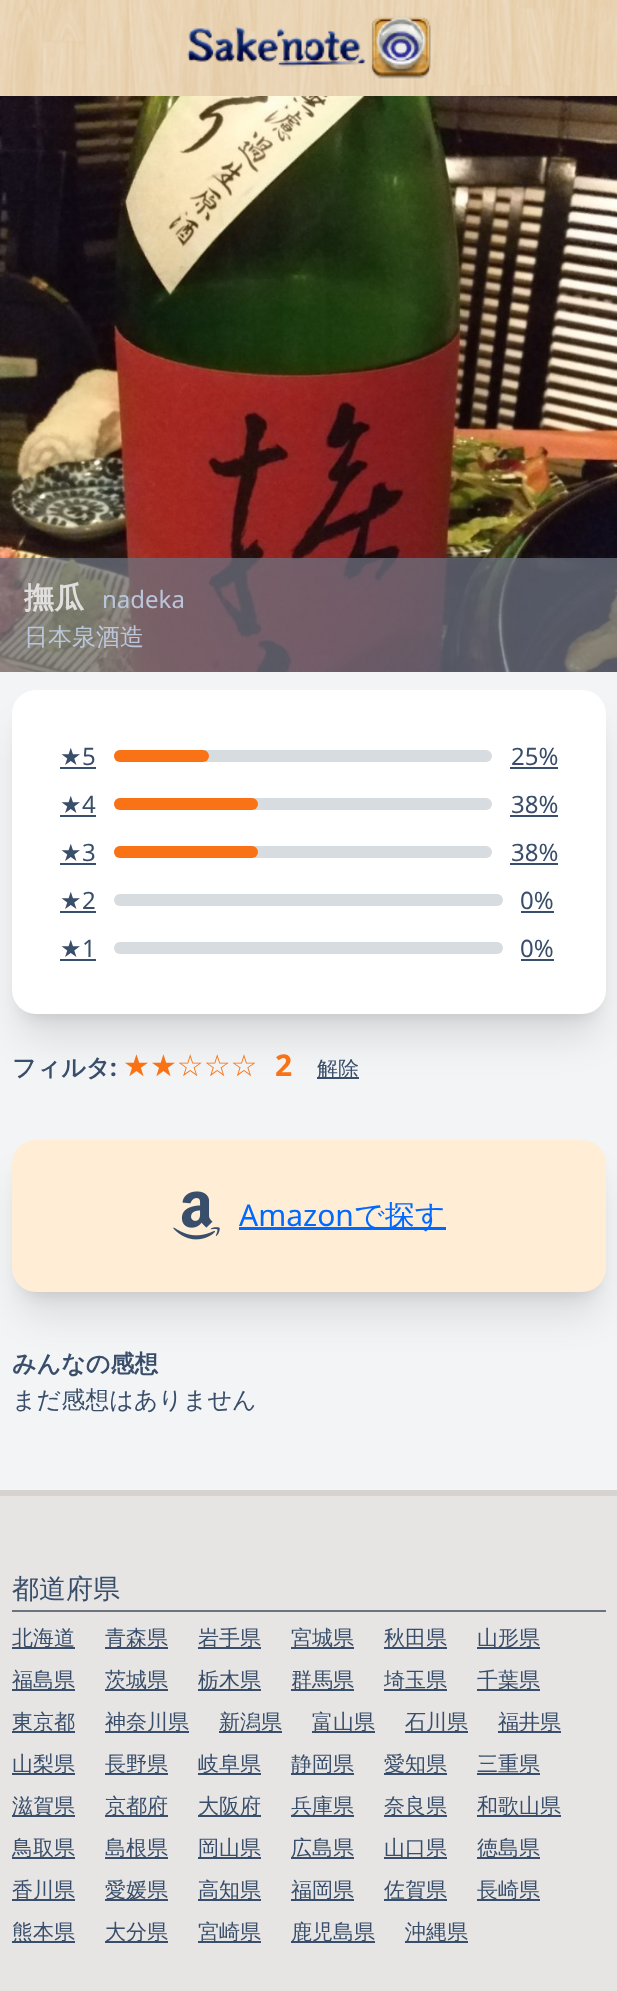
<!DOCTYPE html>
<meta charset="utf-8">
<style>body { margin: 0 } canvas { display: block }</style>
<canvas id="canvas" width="617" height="1991"></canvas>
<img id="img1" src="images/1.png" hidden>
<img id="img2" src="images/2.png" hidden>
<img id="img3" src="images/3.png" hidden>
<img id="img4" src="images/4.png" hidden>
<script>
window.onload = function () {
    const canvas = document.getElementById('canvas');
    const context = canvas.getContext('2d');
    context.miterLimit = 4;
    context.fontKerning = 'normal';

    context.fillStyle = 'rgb(243, 244, 246)';
    context.fillRect(0, 0, 617, 1991);
    context.drawImage(document.getElementById('img1'), 0, 0, 617, 96);
    context.drawImage(document.getElementById('img2'), 187, 16, 244, 63);
    context.drawImage(document.getElementById('img3'), 0, 96, 617, 576);
    context.fillStyle = 'rgba(107, 114, 128, 0.75)';
    context.fillRect(0, 558, 617, 114);
    context.fillStyle = 'rgba(0, 0, 0, 0.1)';
    context.filter = 'blur(7.5px)';
    context.beginPath();
    context.roundRect(21, 711, 576, 306, 15);
    context.fill();
    context.filter = 'none';
    context.fillStyle = 'rgb(57, 78, 106)';
    context.fillRect(317, 1077, 42, 2);
    context.fillStyle = 'rgba(0, 0, 0, 0.1)';
    context.filter = 'blur(19px)';
    context.beginPath();
    context.roundRect(20, 728, 579, 309, 17);
    context.fill();
    context.filter = 'none';
    context.fillStyle = 'rgb(255, 255, 255)';
    context.beginPath();
    context.roundRect(12, 690, 594, 324, 24);
    context.fill();
    context.fillStyle = 'rgb(57, 78, 106)';
    context.fillRect(60, 767, 36, 2);
    context.fillStyle = 'rgb(215, 220, 225)';
    context.beginPath();
    context.roundRect(114, 750, 378, 12, 6);
    context.fill();
    context.fillStyle = 'rgb(249, 115, 22)';
    context.beginPath();
    context.roundRect(114, 750, 95, 12, 6);
    context.fill();
    context.fillStyle = 'rgb(57, 78, 106)';
    context.fillRect(510, 767, 48, 2);
    context.fillRect(60, 815, 36, 2);
    context.fillStyle = 'rgb(215, 220, 225)';
    context.beginPath();
    context.roundRect(114, 798, 378, 12, 6);
    context.fill();
    context.fillStyle = 'rgb(249, 115, 22)';
    context.beginPath();
    context.roundRect(114, 798, 144, 12, 6);
    context.fill();
    context.fillStyle = 'rgb(57, 78, 106)';
    context.fillRect(510, 815, 48, 2);
    context.fillRect(60, 863, 36, 2);
    context.fillStyle = 'rgb(215, 220, 225)';
    context.beginPath();
    context.roundRect(114, 846, 378, 12, 6);
    context.fill();
    context.fillStyle = 'rgb(249, 115, 22)';
    context.beginPath();
    context.roundRect(114, 846, 144, 12, 6);
    context.fill();
    context.fillStyle = 'rgb(57, 78, 106)';
    context.fillRect(510, 863, 48, 2);
    context.fillRect(60, 911, 36, 2);
    context.fillStyle = 'rgb(215, 220, 225)';
    context.beginPath();
    context.roundRect(114, 894, 389, 12, 6);
    context.fill();
    context.fillStyle = 'rgb(57, 78, 106)';
    context.fillRect(521, 911, 33, 2);
    context.fillRect(60, 959, 36, 2);
    context.fillStyle = 'rgb(215, 220, 225)';
    context.beginPath();
    context.roundRect(114, 942, 389, 12, 6);
    context.fill();
    context.fillStyle = 'rgb(57, 78, 106)';
    context.fillRect(521, 959, 33, 2);
    context.fillStyle = 'rgba(0, 0, 0, 0.1)';
    context.filter = 'blur(7.5px)';
    context.beginPath();
    context.roundRect(21, 1161, 576, 134, 15);
    context.fill();
    context.filter = 'none';
    context.filter = 'blur(19px)';
    context.beginPath();
    context.roundRect(20, 1178, 579, 136, 17);
    context.fill();
    context.filter = 'none';
    context.fillStyle = 'rgb(255, 237, 213)';
    context.beginPath();
    context.roundRect(12, 1140, 594, 152, 24);
    context.fill();
    context.drawImage(document.getElementById('img4'), 173, 1191, 47, 49);
    context.fillStyle = 'rgb(0, 105, 255)';
    context.fillRect(239, 1227, 207, 3);
    context.fillStyle = 'rgb(231, 229, 228)';
    context.fillRect(0, 1496, 617, 495);
    context.fillStyle = 'rgb(214, 211, 209)';
    context.fillRect(0, 1490, 617, 6);
    context.fillStyle = 'rgb(107, 114, 128)';
    context.fillRect(12, 1610, 594, 2);
    context.fillStyle = 'rgb(57, 78, 106)';
    context.fillRect(12, 1647, 63, 2);
    context.fillRect(105, 1647, 63, 2);
    context.fillRect(198, 1647, 63, 2);
    context.fillRect(291, 1647, 63, 2);
    context.fillRect(384, 1647, 63, 2);
    context.fillRect(477, 1647, 63, 2);
    context.fillRect(12, 1689, 63, 2);
    context.fillRect(105, 1689, 63, 2);
    context.fillRect(198, 1689, 63, 2);
    context.fillRect(291, 1689, 63, 2);
    context.fillRect(384, 1689, 63, 2);
    context.fillRect(477, 1689, 63, 2);
    context.fillRect(12, 1731, 63, 2);
    context.fillRect(105, 1731, 84, 2);
    context.fillRect(219, 1731, 63, 2);
    context.fillRect(312, 1731, 63, 2);
    context.fillRect(405, 1731, 63, 2);
    context.fillRect(498, 1731, 63, 2);
    context.fillRect(12, 1773, 63, 2);
    context.fillRect(105, 1773, 63, 2);
    context.fillRect(198, 1773, 63, 2);
    context.fillRect(291, 1773, 63, 2);
    context.fillRect(384, 1773, 63, 2);
    context.fillRect(477, 1773, 63, 2);
    context.fillRect(12, 1815, 63, 2);
    context.fillRect(105, 1815, 63, 2);
    context.fillRect(198, 1815, 63, 2);
    context.fillRect(291, 1815, 63, 2);
    context.fillRect(384, 1815, 63, 2);
    context.fillRect(477, 1815, 84, 2);
    context.fillRect(12, 1857, 63, 2);
    context.fillRect(105, 1857, 63, 2);
    context.fillRect(198, 1857, 63, 2);
    context.fillRect(291, 1857, 63, 2);
    context.fillRect(384, 1857, 63, 2);
    context.fillRect(477, 1857, 63, 2);
    context.fillRect(12, 1899, 63, 2);
    context.fillRect(105, 1899, 63, 2);
    context.fillRect(198, 1899, 63, 2);
    context.fillRect(291, 1899, 63, 2);
    context.fillRect(384, 1899, 63, 2);
    context.fillRect(477, 1899, 63, 2);
    context.fillRect(12, 1941, 63, 2);
    context.fillRect(105, 1941, 63, 2);
    context.fillRect(198, 1941, 63, 2);
    context.fillRect(291, 1941, 84, 2);
    context.fillRect(405, 1941, 63, 2);
    context.font = 'bold 30px WenQuanYi Zen Hei';
    context.fillStyle = 'rgb(224, 223, 221)';
    context.fillText('撫瓜', 24, 608);
    context.font = '24px Noto Sans';
    context.fillStyle = 'rgb(186, 198, 219)';
    context.fillText('nadeka', 102, 608);
    context.font = '500 24px WenQuanYi Zen Hei';
    context.fillText('日本泉酒造', 24, 645);
    context.font = '24px DejaVu Sans';
    context.fillStyle = 'rgb(57, 78, 106)';
    context.fillText('★', 60, 765);
    context.font = '24px Noto Sans';
    context.fillText('5', 82, 765);
    context.fillText('25%', 511, 765);
    context.font = '24px DejaVu Sans';
    context.fillText('★', 60, 813);
    context.font = '24px Noto Sans';
    context.fillText('4', 82, 813);
    context.fillText('38%', 511, 813);
    context.font = '24px DejaVu Sans';
    context.fillText('★', 60, 861);
    context.font = '24px Noto Sans';
    context.fillText('3', 82, 861);
    context.fillText('38%', 511, 861);
    context.font = '24px DejaVu Sans';
    context.fillText('★', 60, 909);
    context.font = '24px Noto Sans';
    context.fillText('2', 82, 909);
    context.fillText('0%', 520, 909);
    context.font = '24px DejaVu Sans';
    context.fillText('★', 60, 957);
    context.font = '24px Noto Sans';
    context.fillText('1', 82, 957);
    context.fillText('0%', 520, 957);
    context.font = 'bold 24px WenQuanYi Zen Hei';
    context.fillText('フィルタ', 12, 1076);
    context.font = 'bold 24px Noto Sans';
    context.fillText(':', 110, 1076);
    context.font = '30px DejaVu Sans';
    context.fillStyle = 'rgb(249, 115, 22)';
    context.fillText('★★☆☆☆', 123, 1076);
    context.font = 'bold 30px Noto Sans';
    context.fillText('2', 275, 1076);
    context.font = '500 21px WenQuanYi Zen Hei';
    context.fillStyle = 'rgb(57, 78, 106)';
    context.fillText('解除', 317, 1076);
    context.font = '30px Noto Sans';
    context.fillStyle = 'rgb(0, 105, 255)';
    context.fillText('Amazon', 239, 1226);
    context.font = '500 30px WenQuanYi Zen Hei';
    context.fillText('で探す', 354, 1226);
    context.font = 'bold 24px WenQuanYi Zen Hei';
    context.fillStyle = 'rgb(57, 78, 106)';
    context.fillText('みんなの感想', 12, 1372);
    context.font = '500 24px WenQuanYi Zen Hei';
    context.fillText('まだ感想はありません', 12, 1408);
    context.font = '500 27px WenQuanYi Zen Hei';
    context.fillText('都道府県', 12, 1598);
    context.font = '500 21px WenQuanYi Zen Hei';
    context.fillText('北海道', 12, 1645);
    context.fillText('青森県', 105, 1645);
    context.fillText('岩手県', 198, 1645);
    context.fillText('宮城県', 291, 1645);
    context.fillText('秋田県', 384, 1645);
    context.fillText('山形県', 477, 1645);
    context.fillText('福島県', 12, 1687);
    context.fillText('茨城県', 105, 1687);
    context.fillText('栃木県', 198, 1687);
    context.fillText('群馬県', 291, 1687);
    context.fillText('埼玉県', 384, 1687);
    context.fillText('千葉県', 477, 1687);
    context.fillText('東京都', 12, 1729);
    context.fillText('神奈川県', 105, 1729);
    context.fillText('新潟県', 219, 1729);
    context.fillText('富山県', 312, 1729);
    context.fillText('石川県', 405, 1729);
    context.fillText('福井県', 498, 1729);
    context.fillText('山梨県', 12, 1771);
    context.fillText('長野県', 105, 1771);
    context.fillText('岐阜県', 198, 1771);
    context.fillText('静岡県', 291, 1771);
    context.fillText('愛知県', 384, 1771);
    context.fillText('三重県', 477, 1771);
    context.fillText('滋賀県', 12, 1813);
    context.fillText('京都府', 105, 1813);
    context.fillText('大阪府', 198, 1813);
    context.fillText('兵庫県', 291, 1813);
    context.fillText('奈良県', 384, 1813);
    context.fillText('和歌山県', 477, 1813);
    context.fillText('鳥取県', 12, 1855);
    context.fillText('島根県', 105, 1855);
    context.fillText('岡山県', 198, 1855);
    context.fillText('広島県', 291, 1855);
    context.fillText('山口県', 384, 1855);
    context.fillText('徳島県', 477, 1855);
    context.fillText('香川県', 12, 1897);
    context.fillText('愛媛県', 105, 1897);
    context.fillText('高知県', 198, 1897);
    context.fillText('福岡県', 291, 1897);
    context.fillText('佐賀県', 384, 1897);
    context.fillText('長崎県', 477, 1897);
    context.fillText('熊本県', 12, 1939);
    context.fillText('大分県', 105, 1939);
    context.fillText('宮崎県', 198, 1939);
    context.fillText('鹿児島県', 291, 1939);
    context.fillText('沖縄県', 405, 1939);
};
</script>
